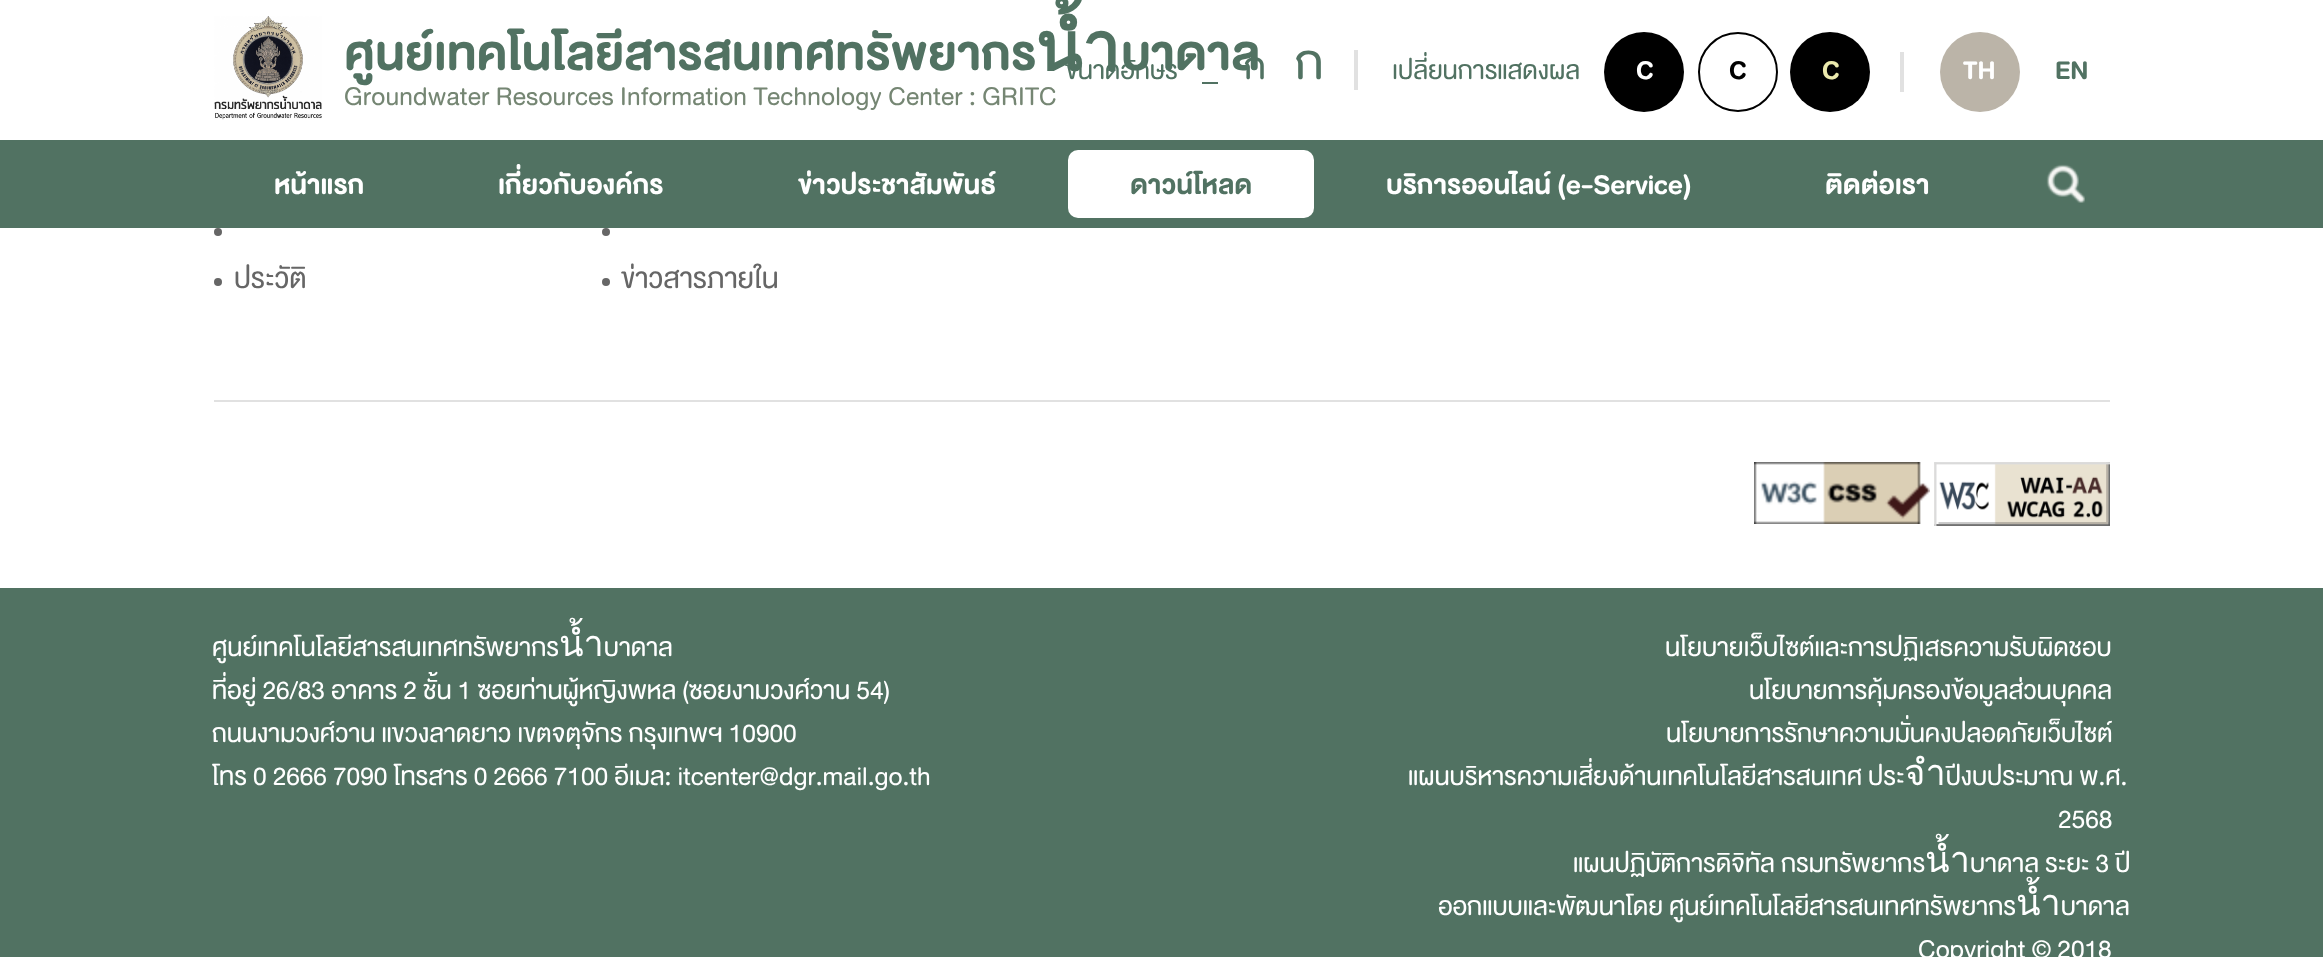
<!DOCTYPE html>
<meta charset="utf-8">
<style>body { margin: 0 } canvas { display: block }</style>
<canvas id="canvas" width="2323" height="957"></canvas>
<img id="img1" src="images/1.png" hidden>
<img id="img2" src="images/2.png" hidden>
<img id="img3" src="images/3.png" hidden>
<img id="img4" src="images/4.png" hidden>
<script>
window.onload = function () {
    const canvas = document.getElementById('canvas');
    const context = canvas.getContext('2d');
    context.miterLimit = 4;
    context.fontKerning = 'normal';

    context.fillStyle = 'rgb(255, 255, 255)';
    context.fillRect(0, 0, 2323, 957);
    context.drawImage(document.getElementById('img1'), 214, 16, 108, 104);
    context.fillStyle = 'rgb(225, 225, 225)';
    context.fillRect(1354, 50, 4, 40);
    context.fillStyle = 'rgb(81, 114, 98)';
    context.fillRect(1202, 82, 16, 2);
    context.fillStyle = 'rgb(0, 0, 0)';
    context.beginPath();
    context.arc(1644, 72, 40, 0, 2 * Math.PI);
    context.fill();
    context.beginPath();
    context.arc(1738, 72, 39, 0, 2 * Math.PI);
    context.strokeStyle = 'rgb(0, 0, 0)';
    context.lineWidth = 2;
    context.stroke();
    context.beginPath();
    context.arc(1830, 72, 40, 0, 2 * Math.PI);
    context.fill();
    context.fillStyle = 'rgb(225, 225, 225)';
    context.fillRect(1900, 52, 4, 40);
    context.fillStyle = 'rgb(187, 180, 168)';
    context.beginPath();
    context.arc(1980, 72, 40, 0, 2 * Math.PI);
    context.fill();
    context.fillStyle = 'rgb(81, 114, 98)';
    context.fillRect(0, 140, 2323, 88);
    context.fillStyle = 'rgb(255, 255, 255)';
    context.beginPath();
    context.roundRect(1068, 150, 246, 68, 10);
    context.fill();
    context.drawImage(document.getElementById('img2'), 2046, 164, 39, 39);
    context.fillStyle = 'rgb(225, 225, 225)';
    context.fillRect(214, 400, 1896, 2);
    context.fillStyle = 'rgb(102, 102, 102)';
    context.beginPath();
    context.arc(218, 232, 4, 0, 2 * Math.PI);
    context.fill();
    context.beginPath();
    context.arc(218, 282, 4, 0, 2 * Math.PI);
    context.fill();
    context.beginPath();
    context.arc(606, 232, 4, 0, 2 * Math.PI);
    context.fill();
    context.beginPath();
    context.arc(606, 282, 4, 0, 2 * Math.PI);
    context.fill();
    context.drawImage(document.getElementById('img3'), 1754, 462, 176, 62);
    context.drawImage(document.getElementById('img4'), 1934, 462, 176, 64);
    context.fillStyle = 'rgb(81, 114, 98)';
    context.fillRect(0, 588, 2323, 369);
    context.font = 'bold 68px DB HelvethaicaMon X';
    context.fillText('ศูนย์เทคโนโลยีสารสนเทศทรัพยากรน้ำบาดาล', 344, 70);
    context.letterSpacing = '0.2px';
    context.font = '36px DB HelvethaicaMon X';
    context.fillStyle = 'rgb(117, 134, 115)';
    context.fillText('Groundwater Resources Information Technology Center : GRITC', 344, 105);
    context.letterSpacing = '0px';
    context.fillStyle = 'rgb(81, 114, 98)';
    context.fillText('ขนาดอักษร', 1065, 79);
    context.font = '52px DB HelvethaicaMon X';
    context.fillText('ก', 1244, 79);
    context.font = '68px DB HelvethaicaMon X';
    context.fillText('ก', 1295, 79);
    context.font = '36px DB HelvethaicaMon X';
    context.fillText('เปลี่ยนการแสดงผล', 1392, 79);
    context.font = 'bold 36px DB HelvethaicaMon X';
    context.fillStyle = 'rgb(255, 255, 255)';
    context.fillText('C', 1636, 79);
    context.fillStyle = 'rgb(0, 0, 0)';
    context.fillText('C', 1729, 79);
    context.fillStyle = 'rgb(236, 234, 173)';
    context.fillText('C', 1822, 79);
    context.fillStyle = 'rgb(255, 255, 255)';
    context.fillText('TH', 1963, 79);
    context.fillStyle = 'rgb(81, 114, 98)';
    context.fillText('EN', 2055, 79);
    context.font = 'bold 38px DB HelvethaicaMon X';
    context.fillStyle = 'rgb(255, 255, 255)';
    context.fillText('หน้าแรก', 274, 194);
    context.fillText('เกี่ยวกับองค์กร', 498, 194);
    context.fillText('ข่าวประชาสัมพันธ์', 798, 194);
    context.fillStyle = 'rgb(81, 114, 98)';
    context.fillText('ดาวน์โหลด', 1130, 194);
    context.fillStyle = 'rgb(255, 255, 255)';
    context.fillText('บริการออนไลน์ (e-Service)', 1386, 194);
    context.fillText('ติดต่อเรา', 1825, 194);
    context.font = '40px DB HelvethaicaMon X';
    context.fillStyle = 'rgb(102, 102, 102)';
    context.fillText('ประวัติ', 234, 288);
    context.fillText('ข่าวสารภายใน', 621, 288);
    context.font = '36px DB HelvethaicaMon X';
    context.fillStyle = 'rgb(255, 255, 255)';
    context.fillText('ศูนย์เทคโนโลยีสารสนเทศทรัพยากรน้ำบาดาล', 212, 656);
    context.fillText('ที่อยู่ 26/83 อาคาร 2 ชั้น 1 ซอยท่านผู้หญิงพหล (ซอยงามวงศ์วาน 54)', 212, 699);
    context.fillText('ถนนงามวงศ์วาน แขวงลาดยาว เขตจตุจักร กรุงเทพฯ 10900', 212, 742);
    context.fillText('โทร 0 2666 7090 โทรสาร 0 2666 7100 อีเมล: itcenter@dgr.mail.go.th', 212, 785);
    context.fillText('นโยบายเว็บไซต์และการปฏิเสธความรับผิดชอบ', 1665, 656);
    context.fillText('นโยบายการคุ้มครองข้อมูลส่วนบุคคล', 1749, 699);
    context.fillText('นโยบายการรักษาความมั่นคงปลอดภัยเว็บไซต์', 1666, 742);
    context.fillText('แผนบริหารความเสี่ยงด้านเทคโนโลยีสารสนเทศ ประจำปีงบประมาณ พ.ศ.', 1408, 785);
    context.fillText('2568', 2058, 828);
    context.fillText('แผนปฏิบัติการดิจิทัล กรมทรัพยากรน้ำบาดาล ระยะ 3 ปี', 1573, 872);
    context.fillText('ออกแบบและพัฒนาโดย ศูนย์เทคโนโลยีสารสนเทศทรัพยากรน้ำบาดาล', 1438, 915);
    context.fillText('Copyright © 2018', 1918, 958);
};
</script>
